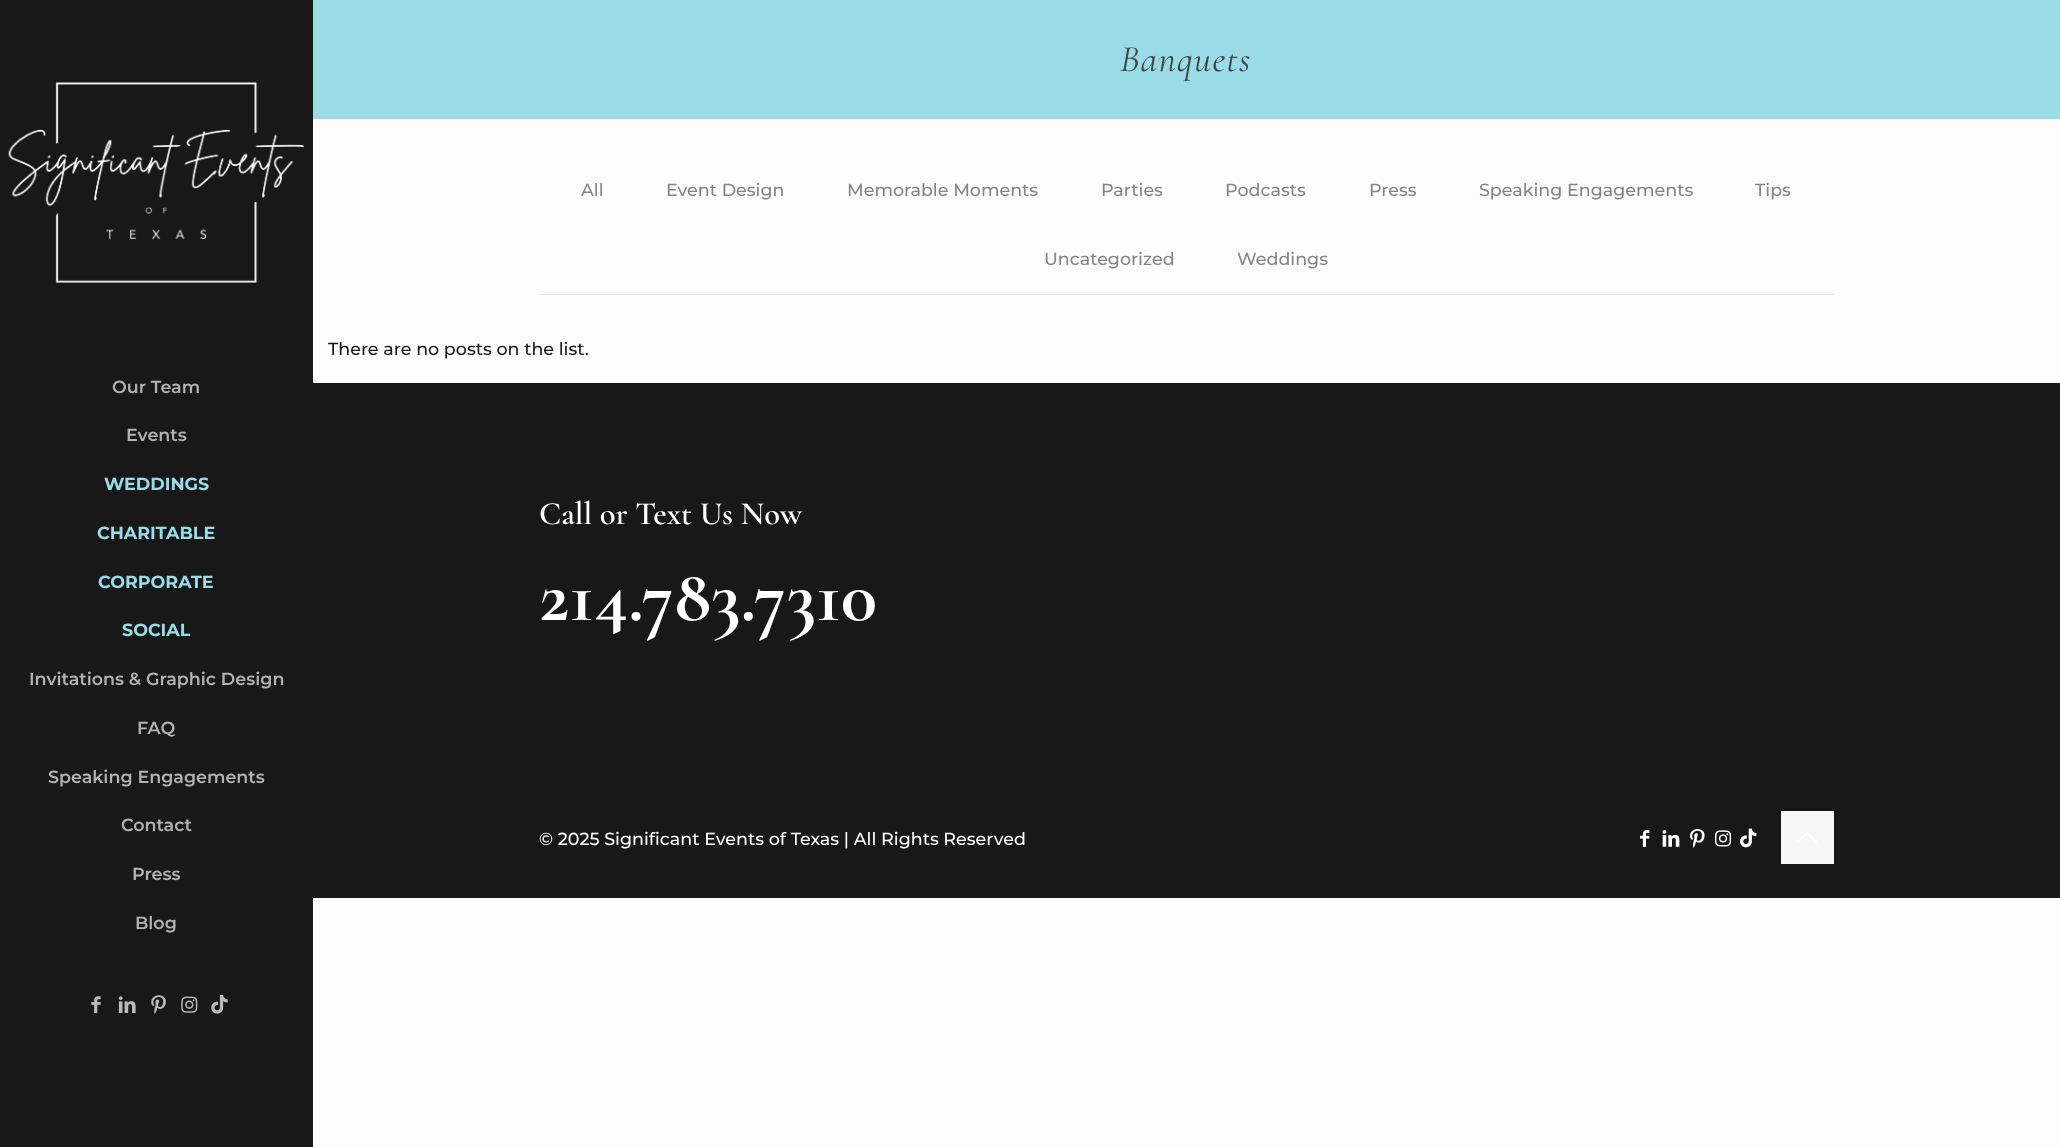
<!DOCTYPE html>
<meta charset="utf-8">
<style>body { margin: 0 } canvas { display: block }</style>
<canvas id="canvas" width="2060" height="1147"></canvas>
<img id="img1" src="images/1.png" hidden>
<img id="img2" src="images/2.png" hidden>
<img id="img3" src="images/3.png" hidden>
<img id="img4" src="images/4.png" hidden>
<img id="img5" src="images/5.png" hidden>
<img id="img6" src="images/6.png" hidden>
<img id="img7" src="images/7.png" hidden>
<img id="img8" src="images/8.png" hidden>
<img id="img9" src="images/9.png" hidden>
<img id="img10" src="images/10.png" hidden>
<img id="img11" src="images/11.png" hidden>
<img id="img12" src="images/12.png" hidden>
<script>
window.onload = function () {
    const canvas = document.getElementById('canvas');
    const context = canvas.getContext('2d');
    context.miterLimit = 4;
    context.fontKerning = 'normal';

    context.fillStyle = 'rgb(252, 252, 252)';
    context.fillRect(0, 0, 2060, 1147);
    context.fillStyle = 'rgb(24, 24, 24)';
    context.fillRect(0, 0, 313, 1147);
    context.drawImage(document.getElementById('img1'), 8, 82, 296, 201);
    context.drawImage(document.getElementById('img2'), 91, 996, 10, 18);
    context.drawImage(document.getElementById('img3'), 118, 996, 18, 17);
    context.drawImage(document.getElementById('img4'), 151, 995, 15, 19);
    context.drawImage(document.getElementById('img5'), 181, 996, 17, 17);
    context.drawImage(document.getElementById('img6'), 211, 994, 17, 20);
    context.fillStyle = 'rgb(154, 219, 232)';
    context.fillRect(313, 0, 1747, 119);
    context.fillStyle = 'rgb(232, 232, 232)';
    context.fillRect(539, 294, 1295, 1);
    context.fillStyle = 'rgb(24, 24, 24)';
    context.fillRect(313, 383, 1747, 515);
    context.drawImage(document.getElementById('img7'), 1640, 830, 10, 17);
    context.drawImage(document.getElementById('img8'), 1662, 830, 18, 17);
    context.drawImage(document.getElementById('img9'), 1690, 829, 15, 19);
    context.drawImage(document.getElementById('img10'), 1715, 830, 17, 17);
    context.drawImage(document.getElementById('img11'), 1740, 828, 17, 20);
    context.fillStyle = 'rgb(247, 247, 247)';
    context.fillRect(1781, 811, 53, 53);
    context.drawImage(document.getElementById('img12'), 1796, 832, 22, 11);
    context.font = '600 17.5px Montserrat';
    context.fillStyle = 'rgb(178, 178, 178)';
    context.fillText('Our Team', 112, 393);
    context.fillText('Events', 126, 441);
    context.font = 'bold 17.5px Montserrat';
    context.fillStyle = 'rgb(154, 219, 232)';
    context.fillText('WEDDINGS', 104, 490);
    context.fillText('CHARITABLE', 97, 539);
    context.fillText('CORPORATE', 98, 588);
    context.fillText('SOCIAL', 122, 636);
    context.font = '600 17.5px Montserrat';
    context.fillStyle = 'rgb(178, 178, 178)';
    context.fillText('Invitations & Graphic Design', 29, 685);
    context.fillText('FAQ', 137, 734);
    context.fillText('Speaking Engagements', 48, 783);
    context.fillText('Contact', 121, 831);
    context.fillText('Press', 132, 880);
    context.fillText('Blog', 135, 929);
    context.letterSpacing = '1.25px';
    context.font = 'italic 37.5px Cormorant Garamond';
    context.fillStyle = 'rgb(68, 68, 68)';
    context.fillText('Banquets', 1120, 71);
    context.letterSpacing = '0px';
    context.font = '500 17.5px Montserrat';
    context.fillStyle = 'rgb(133, 133, 133)';
    context.fillText('All', 581, 196);
    context.fillText('Event Design', 666, 196);
    context.fillText('Memorable Moments', 847, 196);
    context.fillText('Parties', 1101, 196);
    context.fillText('Podcasts', 1225, 196);
    context.fillText('Press', 1369, 196);
    context.fillText('Speaking Engagements', 1479, 196);
    context.fillText('Tips', 1755, 196);
    context.fillText('Uncategorized', 1044, 265);
    context.fillText('Weddings', 1237, 265);
    context.fillStyle = 'rgb(24, 24, 24)';
    context.fillText('There are no posts on the list.', 328, 355);
    context.font = '600 32.5px Cormorant Garamond';
    context.fillStyle = 'rgb(255, 255, 255)';
    context.fillText('Call or Text Us Now', 539, 524);
    context.font = 'bold 75px Cormorant Garamond';
    context.fillText('214.783.7310', 539, 620);
    context.font = '500 17.5px Montserrat';
    context.fillText('© 2025 Significant Events of Texas | All Rights Reserved', 539, 845);
};
</script>
